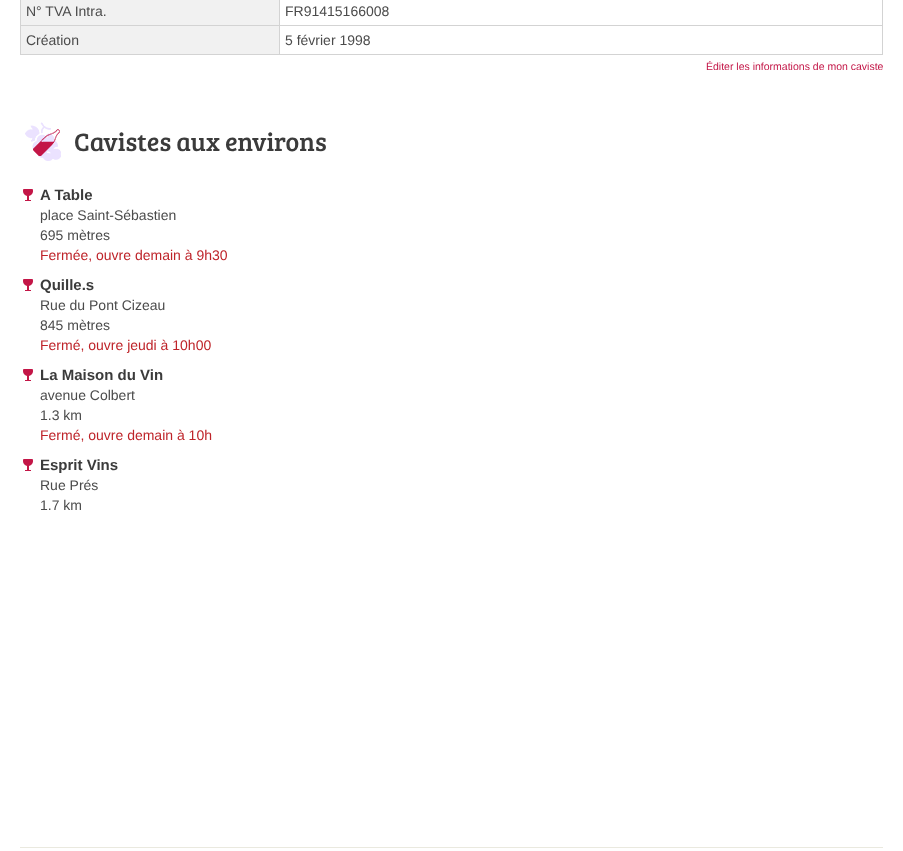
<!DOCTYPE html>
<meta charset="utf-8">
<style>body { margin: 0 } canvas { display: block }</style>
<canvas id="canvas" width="903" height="851"></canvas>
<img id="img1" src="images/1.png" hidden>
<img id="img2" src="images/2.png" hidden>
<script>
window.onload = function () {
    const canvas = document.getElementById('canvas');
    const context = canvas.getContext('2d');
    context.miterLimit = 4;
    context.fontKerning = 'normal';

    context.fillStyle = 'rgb(255, 255, 255)';
    context.fillRect(0, 0, 903, 851);
    context.fillStyle = 'rgb(234, 233, 223)';
    context.fillRect(20, 847, 863, 1);
    context.fillStyle = 'rgb(241, 241, 241)';
    context.fillRect(21, 0, 258, 25);
    context.fillStyle = 'rgb(211, 211, 211)';
    context.fillRect(279, 25, 604, 1);
    context.fillRect(882, 0, 1, 55);
    context.fillRect(279, 54, 604, 1);
    context.fillRect(279, 25, 1, 30);
    context.fillRect(20, 25, 260, 1);
    context.fillRect(279, 0, 1, 26);
    context.fillStyle = 'rgb(241, 241, 241)';
    context.fillRect(21, 26, 258, 28);
    context.fillStyle = 'rgb(211, 211, 211)';
    context.fillRect(20, 54, 260, 1);
    context.fillRect(20, 0, 1, 55);
    context.drawImage(document.getElementById('img1'), 25, 122, 36, 39);
    context.drawImage(document.getElementById('img2'), 23, 189, 10, 12);
    context.drawImage(document.getElementById('img2'), 23, 279, 10, 12);
    context.drawImage(document.getElementById('img2'), 23, 369, 10, 12);
    context.drawImage(document.getElementById('img2'), 23, 459, 10, 12);
    context.font = '14px Liberation Sans';
    context.fillStyle = 'rgb(75, 75, 75)';
    context.fillText('N° TVA Intra.', 26, 16);
    context.fillText('FR91415166008', 285, 16);
    context.fillText('Création', 26, 45);
    context.fillText('5 février 1998', 285, 45);
    context.font = '10.5px Liberation Sans';
    context.fillStyle = 'rgb(195, 22, 71)';
    context.fillText('Éditer les informations de mon caviste', 706, 70);
    context.font = '26px Bree Serif';
    context.fillStyle = 'rgb(59, 59, 59)';
    context.fillText('Cavistes aux environs', 74, 151);
    context.font = 'bold 15px Liberation Sans';
    context.fillText('A Table', 40, 200);
    context.font = '14px Liberation Sans';
    context.fillStyle = 'rgb(75, 75, 75)';
    context.fillText('place Saint-Sébastien', 40, 220);
    context.fillText('695 mètres', 40, 240);
    context.fillStyle = 'rgb(190, 35, 41)';
    context.fillText('Fermée, ouvre demain à 9h30', 40, 260);
    context.font = 'bold 15px Liberation Sans';
    context.fillStyle = 'rgb(59, 59, 59)';
    context.fillText('Quille.s', 40, 290);
    context.font = '14px Liberation Sans';
    context.fillStyle = 'rgb(75, 75, 75)';
    context.fillText('Rue du Pont Cizeau', 40, 310);
    context.fillText('845 mètres', 40, 330);
    context.fillStyle = 'rgb(190, 35, 41)';
    context.fillText('Fermé, ouvre jeudi à 10h00', 40, 350);
    context.font = 'bold 15px Liberation Sans';
    context.fillStyle = 'rgb(59, 59, 59)';
    context.fillText('La Maison du Vin', 40, 380);
    context.font = '14px Liberation Sans';
    context.fillStyle = 'rgb(75, 75, 75)';
    context.fillText('avenue Colbert', 40, 400);
    context.fillText('1.3 km', 40, 420);
    context.fillStyle = 'rgb(190, 35, 41)';
    context.fillText('Fermé, ouvre demain à 10h', 40, 440);
    context.font = 'bold 15px Liberation Sans';
    context.fillStyle = 'rgb(59, 59, 59)';
    context.fillText('Esprit Vins', 40, 470);
    context.font = '14px Liberation Sans';
    context.fillStyle = 'rgb(75, 75, 75)';
    context.fillText('Rue Prés', 40, 490);
    context.fillText('1.7 km', 40, 510);
};
</script>
